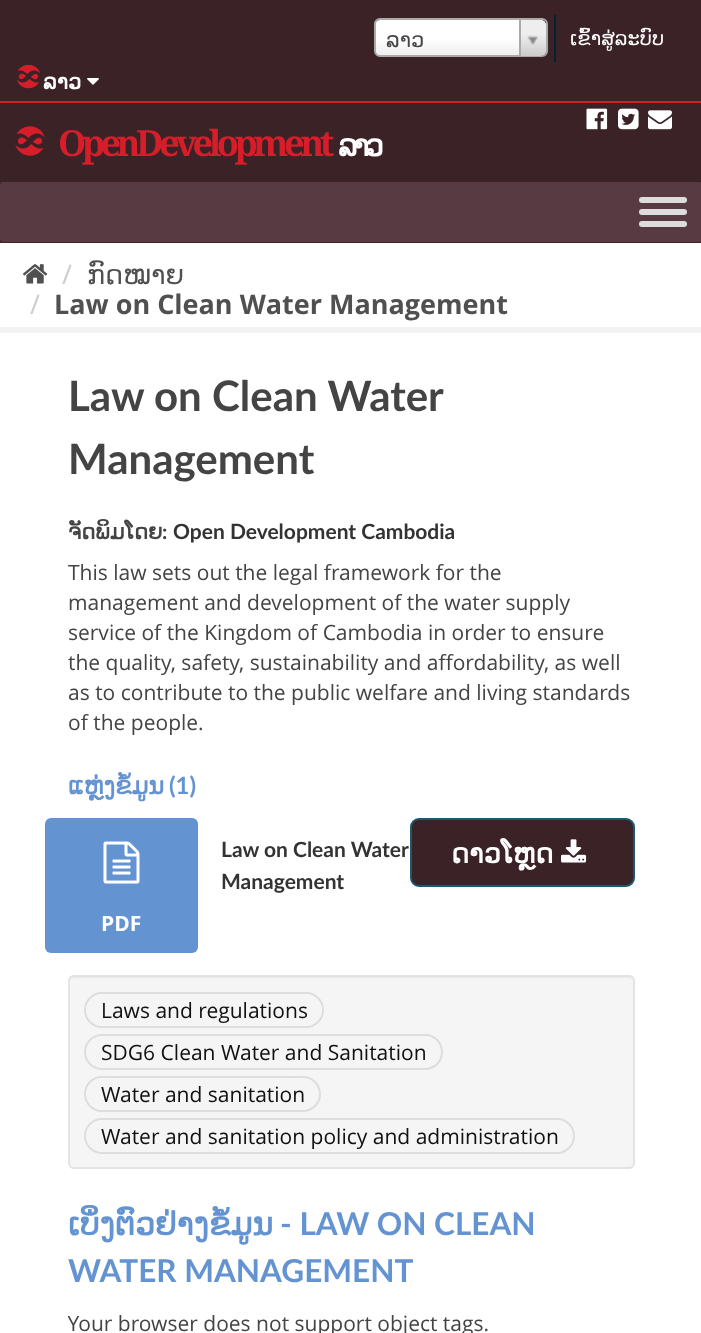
<!DOCTYPE html>
<meta charset="utf-8">
<style>body { margin: 0 } canvas { display: block }</style>
<canvas id="canvas" width="701" height="1333"></canvas>
<img id="img1" src="images/1.png" hidden>
<img id="img2" src="images/2.png" hidden>
<img id="img3" src="images/3.png" hidden>
<img id="img4" src="images/4.png" hidden>
<img id="img5" src="images/5.png" hidden>
<img id="img6" src="images/6.png" hidden>
<img id="img7" src="images/7.png" hidden>
<img id="img8" src="images/8.png" hidden>
<img id="img9" src="images/9.png" hidden>
<img id="img10" src="images/10.png" hidden>
<img id="img11" src="images/11.png" hidden>
<script>
window.onload = function () {
    const canvas = document.getElementById('canvas');
    const context = canvas.getContext('2d');
    context.miterLimit = 4;
    context.fontKerning = 'normal';
    let gradient;

    context.fillStyle = 'rgb(255, 255, 255)';
    context.fillRect(0, 0, 701, 1333);
    context.fillStyle = 'rgb(59, 34, 38)';
    context.fillRect(0, 0, 701, 243);
    gradient = context.createLinearGradient(461, 56, 461, 20);
    gradient.addColorStop(0, 'rgb(238, 238, 238)');
    gradient.addColorStop(0.5, 'rgb(255, 255, 255)');
    context.fillStyle = gradient;
    context.beginPath();
    context.roundRect(375, 20, 171, 36, 5);
    context.fill();
    context.beginPath();
    context.roundRect(375, 19, 172, 37, 5);
    context.strokeStyle = 'rgb(170, 170, 170)';
    context.lineWidth = 2;
    context.stroke();
    context.save();
    context.beginPath();
    context.roundRect(375, 20, 171, 36, 5);
    context.clip();
    gradient = context.createLinearGradient(533, 56, 533, 20);
    gradient.addColorStop(0, 'rgb(204, 204, 204)');
    gradient.addColorStop(0.6, 'rgb(238, 238, 238)');
    context.fillStyle = gradient;
    context.beginPath();
    context.roundRect(519, 20, 27, 36, [0, 6, 6, 0]);
    context.fill();
    context.restore();
    context.fillStyle = 'rgb(170, 170, 170)';
    context.fillRect(519, 20, 2, 36);
    context.drawImage(document.getElementById('img1'), 527, 35, 11, 10);
    context.fillStyle = 'rgb(0, 35, 46)';
    context.fillRect(554, 15, 2, 47);
    context.drawImage(document.getElementById('img2'), 17, 65, 24, 24);
    context.drawImage(document.getElementById('img3'), 87, 78, 12, 7);
    context.fillStyle = 'rgb(214, 30, 42)';
    context.fillRect(0, 101, 701, 2);
    context.drawImage(document.getElementById('img4'), 586, 108, 22, 22);
    context.drawImage(document.getElementById('img5'), 618, 108, 21, 22);
    context.drawImage(document.getElementById('img6'), 648, 110, 24, 20);
    context.drawImage(document.getElementById('img7'), 15, 126, 30, 30);
    context.fillStyle = 'rgb(88, 58, 67)';
    context.beginPath();
    context.roundRect(0, 182, 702, 60, 3);
    context.fill();
    context.fillStyle = 'rgb(221, 221, 221)';
    context.beginPath();
    context.roundRect(639, 197, 48, 6, 3);
    context.fill();
    context.beginPath();
    context.roundRect(639, 209, 48, 6, 3);
    context.fill();
    context.beginPath();
    context.roundRect(639, 221, 48, 6, 3);
    context.fill();
    context.drawImage(document.getElementById('img8'), 23, 264, 25, 20);
    context.strokeStyle = 'rgb(242, 242, 242)';
    context.lineWidth = 6;
    context.strokeRect(-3, 330, 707, 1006);
    context.fillStyle = 'rgb(59, 34, 38)';
    context.beginPath();
    context.roundRect(411, 819, 223, 67, 8);
    context.fill();
    context.strokeStyle = 'rgb(27, 90, 110)';
    context.lineWidth = 2;
    context.stroke();
    context.drawImage(document.getElementById('img9'), 561, 839, 26, 24);
    context.fillStyle = 'rgb(100, 147, 210)';
    context.beginPath();
    context.roundRect(45, 818, 153, 135, 6);
    context.fill();
    context.drawImage(document.getElementById('img10'), 103, 841, 37, 43);
    context.fillStyle = 'rgb(245, 245, 245)';
    context.beginPath();
    context.roundRect(68, 975, 567, 194, 6);
    context.fill();
    context.fillStyle = 'rgb(233, 233, 233)';
    context.beginPath();
    context.moveTo(74, 978);
    context.lineTo(628, 978);
    context.bezierCurveTo(631, 978, 633, 980, 633, 982);
    context.bezierCurveTo(633, 979, 631, 977, 628, 977);
    context.lineTo(74, 977);
    context.bezierCurveTo(71, 977, 69, 979, 69, 982);
    context.bezierCurveTo(69, 980, 71, 978, 74, 978);
    context.closePath();
    context.fill();
    context.beginPath();
    context.roundRect(69, 976, 565, 192, 5);
    context.strokeStyle = 'rgb(227, 227, 227)';
    context.stroke();
    context.fillStyle = 'rgb(255, 255, 255)';
    context.beginPath();
    context.moveTo(102, 994);
    context.lineTo(306, 994);
    context.bezierCurveTo(315, 994, 322, 1002, 322, 1011);
    context.bezierCurveTo(322, 1014, 321, 1016, 320, 1019);
    context.bezierCurveTo(323, 1015, 324, 1010, 323, 1006);
    context.bezierCurveTo(321, 999, 314, 993, 306, 993);
    context.lineTo(136, 993);
    context.bezierCurveTo(125, 993, 85, 985, 86, 1010);
    context.bezierCurveTo(86, 1002, 93, 994, 102, 994);
    context.closePath();
    context.fill();
    context.beginPath();
    context.roundRect(85, 993, 238, 34, 17);
    context.strokeStyle = 'rgb(221, 221, 221)';
    context.stroke();
    context.beginPath();
    context.moveTo(102, 1036);
    context.lineTo(424, 1036);
    context.bezierCurveTo(434, 1036, 441, 1044, 441, 1052);
    context.bezierCurveTo(441, 1043, 434, 1035, 424, 1035);
    context.lineTo(102, 1035);
    context.bezierCurveTo(93, 1035, 86, 1043, 86, 1052);
    context.bezierCurveTo(86, 1044, 93, 1036, 102, 1036);
    context.closePath();
    context.fill();
    context.beginPath();
    context.roundRect(85, 1035, 357, 34, 17);
    context.stroke();
    context.beginPath();
    context.moveTo(102, 1078);
    context.lineTo(303, 1078);
    context.bezierCurveTo(312, 1078, 320, 1086, 320, 1094);
    context.bezierCurveTo(321, 1069, 281, 1077, 270, 1077);
    context.lineTo(136, 1077);
    context.bezierCurveTo(125, 1077, 85, 1069, 86, 1094);
    context.bezierCurveTo(86, 1086, 93, 1078, 102, 1078);
    context.closePath();
    context.fill();
    context.beginPath();
    context.roundRect(85, 1077, 235, 34, 17);
    context.stroke();
    context.beginPath();
    context.moveTo(102, 1120);
    context.lineTo(556, 1120);
    context.bezierCurveTo(566, 1120, 573, 1128, 573, 1136);
    context.bezierCurveTo(573, 1126, 566, 1119, 556, 1119);
    context.lineTo(102, 1119);
    context.bezierCurveTo(93, 1119, 86, 1126, 86, 1136);
    context.bezierCurveTo(86, 1128, 93, 1120, 102, 1120);
    context.closePath();
    context.fill();
    context.beginPath();
    context.roundRect(85, 1119, 489, 34, 17);
    context.stroke();
    context.drawImage(document.getElementById('img11'), 67, 1315, 421, 18);
    context.font = '21px DejaVu Sans';
    context.fillStyle = 'rgb(68, 68, 68)';
    context.fillText('ລາວ', 386, 47);
    context.font = '19.5px DejaVu Sans';
    context.fillStyle = 'rgb(255, 255, 255)';
    context.fillText('ເຂົ້າສູ່ລະບົບ', 570, 45);
    context.font = 'bold 21px DejaVu Sans';
    context.fillText('ລາວ', 43, 89);
    context.letterSpacing = '-4.5px';
    context.font = 'bold 36px Droid Serif';
    context.fillStyle = 'rgb(214, 30, 42)';
    context.fillText('OpenDevelopment', 58, 156);
    context.font = 'bold 30px DejaVu Sans';
    context.fillStyle = 'rgb(255, 255, 255)';
    context.fillText('ລາວ', 338, 156);
    context.letterSpacing = '0px';
    context.font = '27px Open Sans';
    context.fillStyle = 'rgb(204, 204, 204)';
    context.fillText('/', 62, 284);
    context.font = '27px DejaVu Sans';
    context.fillStyle = 'rgb(80, 80, 80)';
    context.fillText('ກົດໝາຍ', 87, 284);
    context.font = '27px Open Sans';
    context.fillStyle = 'rgb(204, 204, 204)';
    context.fillText('/', 30, 314);
    context.font = 'bold 27px Open Sans';
    context.fillStyle = 'rgb(80, 80, 80)';
    context.fillText('Law on Clean Water Management', 54, 314);
    context.font = 'bold 42px Lato';
    context.fillStyle = 'rgb(68, 68, 68)';
    context.fillText('Law on Clean Water', 68, 411);
    context.fillText('Management', 68, 474);
    context.font = 'bold 21px DejaVu Sans';
    context.fillText('ຈັດພິມໂດຍ', 68, 539);
    context.font = 'bold 21px Lato';
    context.fillText(':', 162, 539);
    context.fillStyle = 'rgb(51, 51, 51)';
    context.fillText('Open Development Cambodia', 173, 539);
    context.font = '21px Open Sans';
    context.fillStyle = 'rgb(68, 68, 68)';
    context.fillText('This law sets out the legal framework for the', 68, 580);
    context.fillText('management and development of the water supply', 68, 610);
    context.fillText('service of the Kingdom of Cambodia in order to ensure', 68, 640);
    context.fillText('the quality, safety, sustainability and affordability, as well', 68, 670);
    context.fillText('as to contribute to the public welfare and living standards', 68, 700);
    context.fillText('of the people.', 68, 730);
    context.font = 'bold 24px DejaVu Sans';
    context.fillStyle = 'rgb(100, 147, 210)';
    context.fillText('ແຫຼ່ງຂໍ້ມູນ', 68, 794);
    context.font = 'bold 24px Lato';
    context.fillText('(1)', 169, 794);
    context.font = 'bold 21px Lato';
    context.fillStyle = 'rgb(51, 51, 51)';
    context.fillText('Law on Clean Water', 221, 857);
    context.fillText('Management', 221, 889);
    context.font = 'bold 27px DejaVu Sans';
    context.fillStyle = 'rgb(255, 255, 255)';
    context.fillText('ດາວໂຫຼດ', 451, 863);
    context.font = 'bold 21px Open Sans';
    context.fillText('PDF', 101, 931);
    context.font = '21px Open Sans';
    context.fillStyle = 'rgb(17, 17, 17)';
    context.fillText('Laws and regulations', 101, 1018);
    context.fillText('SDG6 Clean Water and Sanitation', 101, 1060);
    context.fillText('Water and sanitation', 101, 1102);
    context.fillText('Water and sanitation policy and administration', 101, 1144);
    context.font = 'bold 31.5px DejaVu Sans';
    context.fillStyle = 'rgb(100, 147, 210)';
    context.fillText('ເບິ່ງຕົວຢ່າງຂໍ້ມູນ', 68, 1235);
    context.font = 'bold 31.5px Lato';
    context.fillText('- LAW ON CLEAN', 280, 1235);
    context.fillText('WATER MANAGEMENT', 68, 1282);
};
</script>
